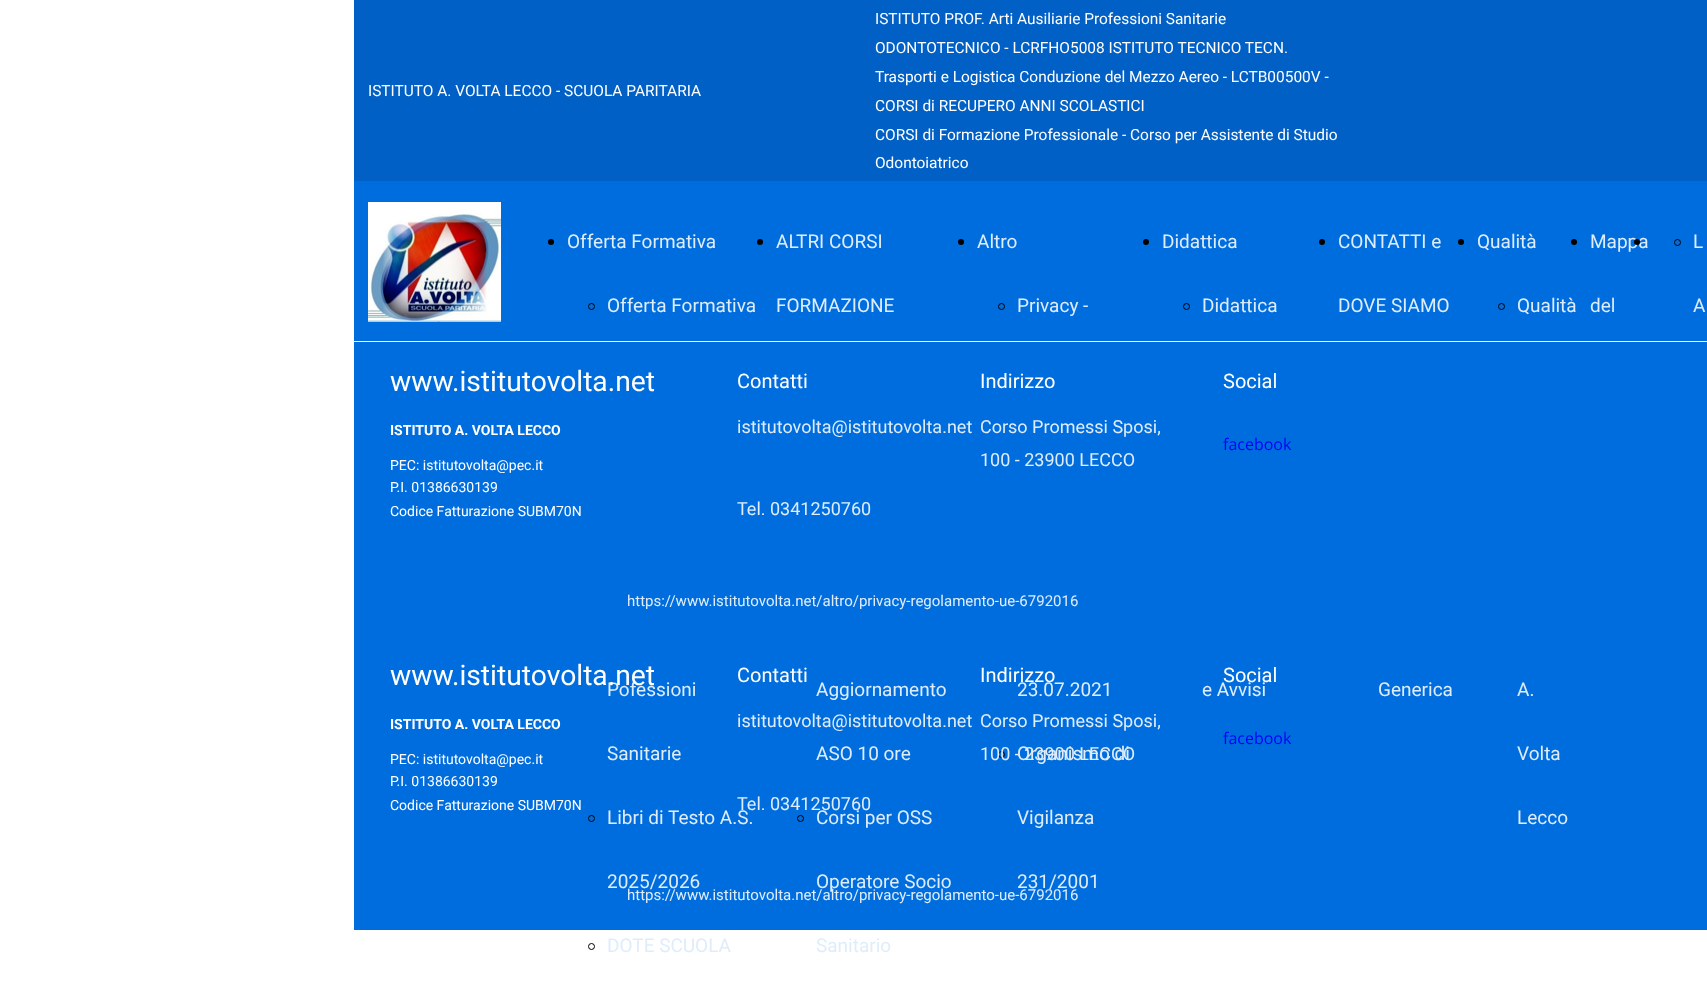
<!DOCTYPE html>
<meta charset="utf-8">
<style>body { margin: 0 } canvas { display: block }</style>
<canvas id="canvas" width="1707" height="984"></canvas>
<img id="img1" src="images/1.png" hidden>
<script>
window.onload = function () {
    const canvas = document.getElementById('canvas');
    const context = canvas.getContext('2d');
    context.miterLimit = 4;
    context.fontKerning = 'normal';

    context.fillStyle = 'rgb(255, 255, 255)';
    context.fillRect(0, 0, 1707, 984);
    context.fillStyle = 'rgb(0, 96, 197)';
    context.fillRect(354, 0, 1353, 181);
    context.fillStyle = 'rgb(0, 109, 222)';
    context.fillRect(354, 181, 1353, 160);
    context.drawImage(document.getElementById('img1'), 368, 202, 133, 120);
    context.fillStyle = 'rgb(0, 0, 0)';
    context.beginPath();
    context.arc(551, 242, 3, 0, 2 * Math.PI);
    context.fill();
    context.beginPath();
    context.arc(591.5, 306.5, 3, 0, 2 * Math.PI);
    context.strokeStyle = 'rgb(0, 0, 0)';
    context.stroke();
    context.fillStyle = 'rgb(0, 109, 222)';
    context.fillRect(354, 342, 1353, 588);
    context.beginPath();
    context.arc(591.5, 818.5, 3, 0, 2 * Math.PI);
    context.stroke();
    context.beginPath();
    context.arc(591.5, 946.5, 3, 0, 2 * Math.PI);
    context.stroke();
    context.fillStyle = 'rgb(0, 0, 0)';
    context.beginPath();
    context.arc(760, 242, 3, 0, 2 * Math.PI);
    context.fill();
    context.beginPath();
    context.arc(800.5, 818.5, 3, 0, 2 * Math.PI);
    context.stroke();
    context.beginPath();
    context.arc(961, 242, 3, 0, 2 * Math.PI);
    context.fill();
    context.beginPath();
    context.arc(1001.5, 306.5, 3, 0, 2 * Math.PI);
    context.stroke();
    context.beginPath();
    context.arc(1001.5, 754.5, 3, 0, 2 * Math.PI);
    context.stroke();
    context.beginPath();
    context.arc(1146, 242, 3, 0, 2 * Math.PI);
    context.fill();
    context.beginPath();
    context.arc(1186.5, 306.5, 3, 0, 2 * Math.PI);
    context.stroke();
    context.beginPath();
    context.arc(1322, 242, 3, 0, 2 * Math.PI);
    context.fill();
    context.beginPath();
    context.arc(1461, 242, 3, 0, 2 * Math.PI);
    context.fill();
    context.beginPath();
    context.arc(1501.5, 306.5, 3, 0, 2 * Math.PI);
    context.stroke();
    context.beginPath();
    context.arc(1574, 242, 3, 0, 2 * Math.PI);
    context.fill();
    context.beginPath();
    context.arc(1677.5, 242.5, 3, 0, 2 * Math.PI);
    context.stroke();
    context.font = '15.45px Roboto';
    context.fillStyle = 'rgb(255, 255, 255)';
    context.fillText('ISTITUTO A. VOLTA LECCO - SCUOLA PARITARIA', 368, 96);
    context.fillText('ISTITUTO PROF. Arti Ausiliarie Professioni Sanitarie', 875, 24);
    context.fillText('ODONTOTECNICO - LCRFHO5008 ISTITUTO TECNICO TECN.', 875, 53);
    context.fillText('Trasporti e Logistica Conduzione del Mezzo Aereo - LCTB00500V -', 875, 82);
    context.fillText('CORSI di RECUPERO ANNI SCOLASTICI', 875, 111);
    context.fillText('CORSI di Formazione Professionale - Corso per Assistente di Studio', 875, 140);
    context.fillText('Odontoiatrico', 875, 168);
    context.font = '19px Roboto';
    context.fillStyle = 'rgb(223, 237, 251)';
    context.fillText('Offerta Formativa', 567, 248);
    context.fillText('Offerta Formativa', 607, 312);
    context.fillText('Pofessioni', 607, 696);
    context.fillText('Sanitarie', 607, 760);
    context.fillText('Libri di Testo A.S.', 607, 824);
    context.fillText('2025/2026', 607, 888);
    context.fillText('DOTE SCUOLA', 607, 952);
    context.fillText('ALTRI CORSI', 776, 248);
    context.fillText('FORMAZIONE', 776, 312);
    context.fillText('Aggiornamento', 816, 696);
    context.fillText('ASO 10 ore', 816, 760);
    context.fillText('Corsi per OSS', 816, 824);
    context.fillText('Operatore Socio', 816, 888);
    context.fillText('Sanitario', 816, 952);
    context.fillText('Altro', 977, 248);
    context.fillText('Privacy -', 1017, 312);
    context.fillText('23.07.2021', 1017, 696);
    context.fillText('Organismo di', 1017, 760);
    context.fillText('Vigilanza', 1017, 824);
    context.fillText('231/2001', 1017, 888);
    context.fillText('Didattica', 1162, 248);
    context.fillText('Didattica', 1202, 312);
    context.fillText('e Avvisi', 1202, 696);
    context.fillText('CONTATTI e', 1338, 248);
    context.fillText('DOVE SIAMO', 1338, 312);
    context.fillText('Generica', 1378, 696);
    context.fillText('Qualità', 1477, 248);
    context.fillText('Qualità', 1517, 312);
    context.fillText('A.', 1517, 696);
    context.fillText('Volta', 1517, 760);
    context.fillText('Lecco', 1517, 824);
    context.fillText('Mappa', 1590, 248);
    context.fillText('del', 1590, 312);
    context.fillStyle = 'rgb(0, 0, 0)';
    context.beginPath();
    context.arc(1637, 242, 3, 0, 2 * Math.PI);
    context.fill();
    context.fillStyle = 'rgb(223, 237, 251)';
    context.fillText('L', 1693, 248);
    context.fillText('A', 1693, 312);
    context.font = '28.25px Roboto';
    context.fillStyle = 'rgb(255, 255, 255)';
    context.fillText('www.istitutovolta.net', 390, 391);
    context.font = '20px Roboto';
    context.fillText('Contatti', 737, 388);
    context.fillText('Indirizzo', 980, 388);
    context.fillText('Social', 1223, 388);
    context.font = 'bold 14px Roboto';
    context.fillText('ISTITUTO A. VOLTA LECCO', 390, 435);
    context.font = '14px Roboto';
    context.fillText('PEC: istitutovolta@pec.it', 390, 470);
    context.fillText('P.I. 01386630139', 390, 492);
    context.fillText('Codice Fatturazione SUBM70N', 390, 516);
    context.font = '18px Roboto';
    context.fillStyle = 'rgb(223, 237, 251)';
    context.fillText('istitutovolta@istitutovolta.net', 737, 433);
    context.fillText('Corso Promessi Sposi,', 980, 433);
    context.fillText('100 - 23900 LECCO', 980, 466);
    context.font = '16px Open Sans';
    context.fillStyle = 'rgb(0, 0, 255)';
    context.fillText('facebook', 1223, 450);
    context.font = '18px Roboto';
    context.fillStyle = 'rgb(223, 237, 251)';
    context.fillText('Tel. 0341250760', 737, 515);
    context.font = '15px Roboto';
    context.fillText('https://www.istitutovolta.net/altro/privacy-regolamento-ue-6792016', 627, 606);
    context.font = '28.25px Roboto';
    context.fillStyle = 'rgb(255, 255, 255)';
    context.fillText('www.istitutovolta.net', 390, 685);
    context.font = '20px Roboto';
    context.fillText('Contatti', 737, 682);
    context.fillText('Indirizzo', 980, 682);
    context.fillText('Social', 1223, 682);
    context.font = 'bold 14px Roboto';
    context.fillText('ISTITUTO A. VOLTA LECCO', 390, 729);
    context.font = '14px Roboto';
    context.fillText('PEC: istitutovolta@pec.it', 390, 764);
    context.fillText('P.I. 01386630139', 390, 786);
    context.fillText('Codice Fatturazione SUBM70N', 390, 810);
    context.font = '18px Roboto';
    context.fillStyle = 'rgb(223, 237, 251)';
    context.fillText('istitutovolta@istitutovolta.net', 737, 727);
    context.fillText('Corso Promessi Sposi,', 980, 727);
    context.fillText('100 - 23900 LECCO', 980, 760);
    context.font = '16px Open Sans';
    context.fillStyle = 'rgb(0, 0, 255)';
    context.fillText('facebook', 1223, 744);
    context.font = '18px Roboto';
    context.fillStyle = 'rgb(223, 237, 251)';
    context.fillText('Tel. 0341250760', 737, 810);
    context.font = '15px Roboto';
    context.fillText('https://www.istitutovolta.net/altro/privacy-regolamento-ue-6792016', 627, 900);
};
</script>
